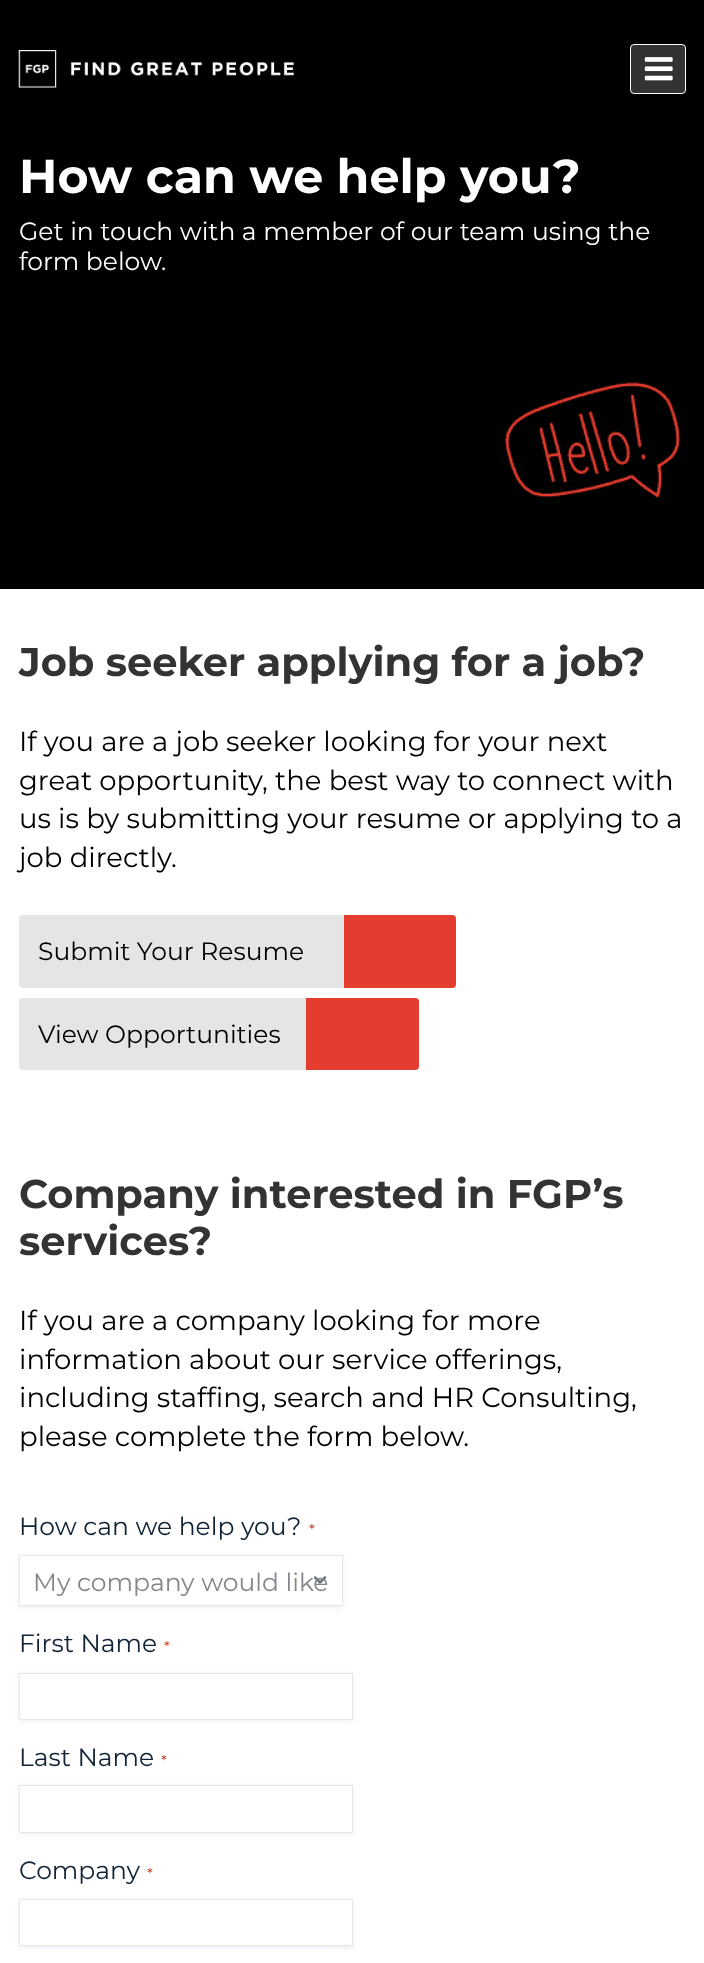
<!DOCTYPE html>
<meta charset="utf-8">
<style>body { margin: 0 } canvas { display: block }</style>
<canvas id="canvas" width="704" height="1963"></canvas>
<img id="img1" src="images/1.png" hidden>
<img id="img2" src="images/2.png" hidden>
<img id="img3" src="images/3.png" hidden>
<img id="img4" src="images/4.png" hidden>
<script>
window.onload = function () {
    const canvas = document.getElementById('canvas');
    const context = canvas.getContext('2d');
    context.miterLimit = 4;
    context.fontKerning = 'normal';

    context.fillStyle = 'rgb(255, 255, 255)';
    context.fillRect(0, 0, 704, 1963);
    context.fillStyle = 'rgb(0, 0, 0)';
    context.fillRect(0, 0, 704, 589);
    context.drawImage(document.getElementById('img1'), 18, 50, 276, 38);
    context.fillStyle = 'rgb(51, 51, 51)';
    context.beginPath();
    context.roundRect(630.5, 44.5, 55, 49, 3.5);
    context.fill();
    context.strokeStyle = 'rgb(255, 255, 255)';
    context.stroke();
    context.drawImage(document.getElementById('img2'), 644, 57, 29, 24);
    context.drawImage(document.getElementById('img3'), 504, 382, 177, 116);
    context.fillStyle = 'rgb(228, 229, 230)';
    context.beginPath();
    context.roundRect(19, 915, 437, 73, 4);
    context.fill();
    context.fillStyle = 'rgb(228, 60, 47)';
    context.beginPath();
    context.roundRect(344, 915, 112, 73, [0, 4, 4, 0]);
    context.fill();
    context.fillStyle = 'rgb(228, 229, 230)';
    context.beginPath();
    context.roundRect(19, 998, 400, 72, 4);
    context.fill();
    context.fillStyle = 'rgb(228, 60, 47)';
    context.beginPath();
    context.roundRect(306, 998, 113, 72, [0, 4, 4, 0]);
    context.fill();
    context.fillStyle = 'rgba(18, 25, 97, 0.08)';
    context.filter = 'blur(2.5px)';
    context.beginPath();
    context.rect(19, 1556, 324, 52);
    context.fill();
    context.filter = 'none';
    context.fillStyle = 'rgb(255, 255, 255)';
    context.fillRect(20, 1556, 322, 49);
    context.drawImage(document.getElementById('img4'), 314, 1576, 12, 8);
    context.strokeStyle = 'rgb(231, 231, 231)';
    context.strokeRect(19.5, 1555.5, 323, 50);
    context.fillStyle = 'rgba(18, 25, 97, 0.08)';
    context.filter = 'blur(2.5px)';
    context.beginPath();
    context.rect(19, 1674, 334, 47);
    context.fill();
    context.filter = 'none';
    context.fillStyle = 'rgb(255, 255, 255)';
    context.beginPath();
    context.rect(19.5, 1673.5, 333, 46);
    context.fill();
    context.stroke();
    context.fillStyle = 'rgba(18, 25, 97, 0.08)';
    context.filter = 'blur(2.5px)';
    context.beginPath();
    context.rect(19, 1786, 334, 48);
    context.fill();
    context.filter = 'none';
    context.fillStyle = 'rgb(255, 255, 255)';
    context.beginPath();
    context.rect(19.5, 1785.5, 333, 47);
    context.fill();
    context.stroke();
    context.fillStyle = 'rgba(18, 25, 97, 0.08)';
    context.filter = 'blur(2.5px)';
    context.beginPath();
    context.rect(19, 1900, 334, 48);
    context.fill();
    context.filter = 'none';
    context.fillStyle = 'rgb(255, 255, 255)';
    context.beginPath();
    context.rect(19.5, 1899.5, 333, 46);
    context.fill();
    context.stroke();
    context.font = 'bold 47.5px Montserrat';
    context.fillText('How can we help you?', 19, 193);
    context.font = '25px Montserrat';
    context.fillText('Get in touch with a member of our team using the', 19, 240);
    context.fillText('form below.', 19, 270);
    context.font = 'bold 40px Montserrat';
    context.fillStyle = 'rgb(51, 51, 51)';
    context.fillText('Job seeker applying for a job?', 19, 676);
    context.font = '27.5px Montserrat';
    context.fillStyle = 'rgb(0, 0, 0)';
    context.fillText('If you are a job seeker looking for your next', 19, 751);
    context.fillText('great opportunity, the best way to connect with', 19, 790);
    context.fillText('us is by submitting your resume or applying to a', 19, 828);
    context.fillText('job directly.', 19, 867);
    context.font = '25px Montserrat';
    context.fillText('Submit Your Resume', 38, 960);
    context.fillText('View Opportunities', 38, 1043);
    context.font = 'bold 40px Montserrat';
    context.fillStyle = 'rgb(51, 51, 51)';
    context.fillText('Company interested in FGP’s', 19, 1208);
    context.fillText('services?', 19, 1255);
    context.font = '27.5px Montserrat';
    context.fillStyle = 'rgb(0, 0, 0)';
    context.fillText('If you are a company looking for more', 19, 1330);
    context.fillText('information about our service offerings,', 19, 1369);
    context.fillText('including staffing, search and HR Consulting,', 19, 1407);
    context.fillText('please complete the form below.', 19, 1446);
    context.font = '25px Montserrat';
    context.fillStyle = 'rgb(17, 35, 55)';
    context.fillText('How can we help you?', 19, 1535);
    context.font = '15px Montserrat';
    context.fillStyle = 'rgb(192, 43, 10)';
    context.fillText('*', 309, 1535);
    context.font = '25px Montserrat';
    context.fillStyle = 'rgb(133, 134, 140)';
    context.fillText('My company would like', 33, 1591);
    context.fillStyle = 'rgb(17, 35, 55)';
    context.fillText('First Name', 19, 1652);
    context.font = '15px Montserrat';
    context.fillStyle = 'rgb(192, 43, 10)';
    context.fillText('*', 164, 1652);
    context.font = '25px Montserrat';
    context.fillStyle = 'rgb(17, 35, 55)';
    context.fillText('Last Name', 19, 1766);
    context.font = '15px Montserrat';
    context.fillStyle = 'rgb(192, 43, 10)';
    context.fillText('*', 161, 1766);
    context.font = '25px Montserrat';
    context.fillStyle = 'rgb(17, 35, 55)';
    context.fillText('Company', 19, 1879);
    context.font = '15px Montserrat';
    context.fillStyle = 'rgb(192, 43, 10)';
    context.fillText('*', 147, 1879);
};
</script>
